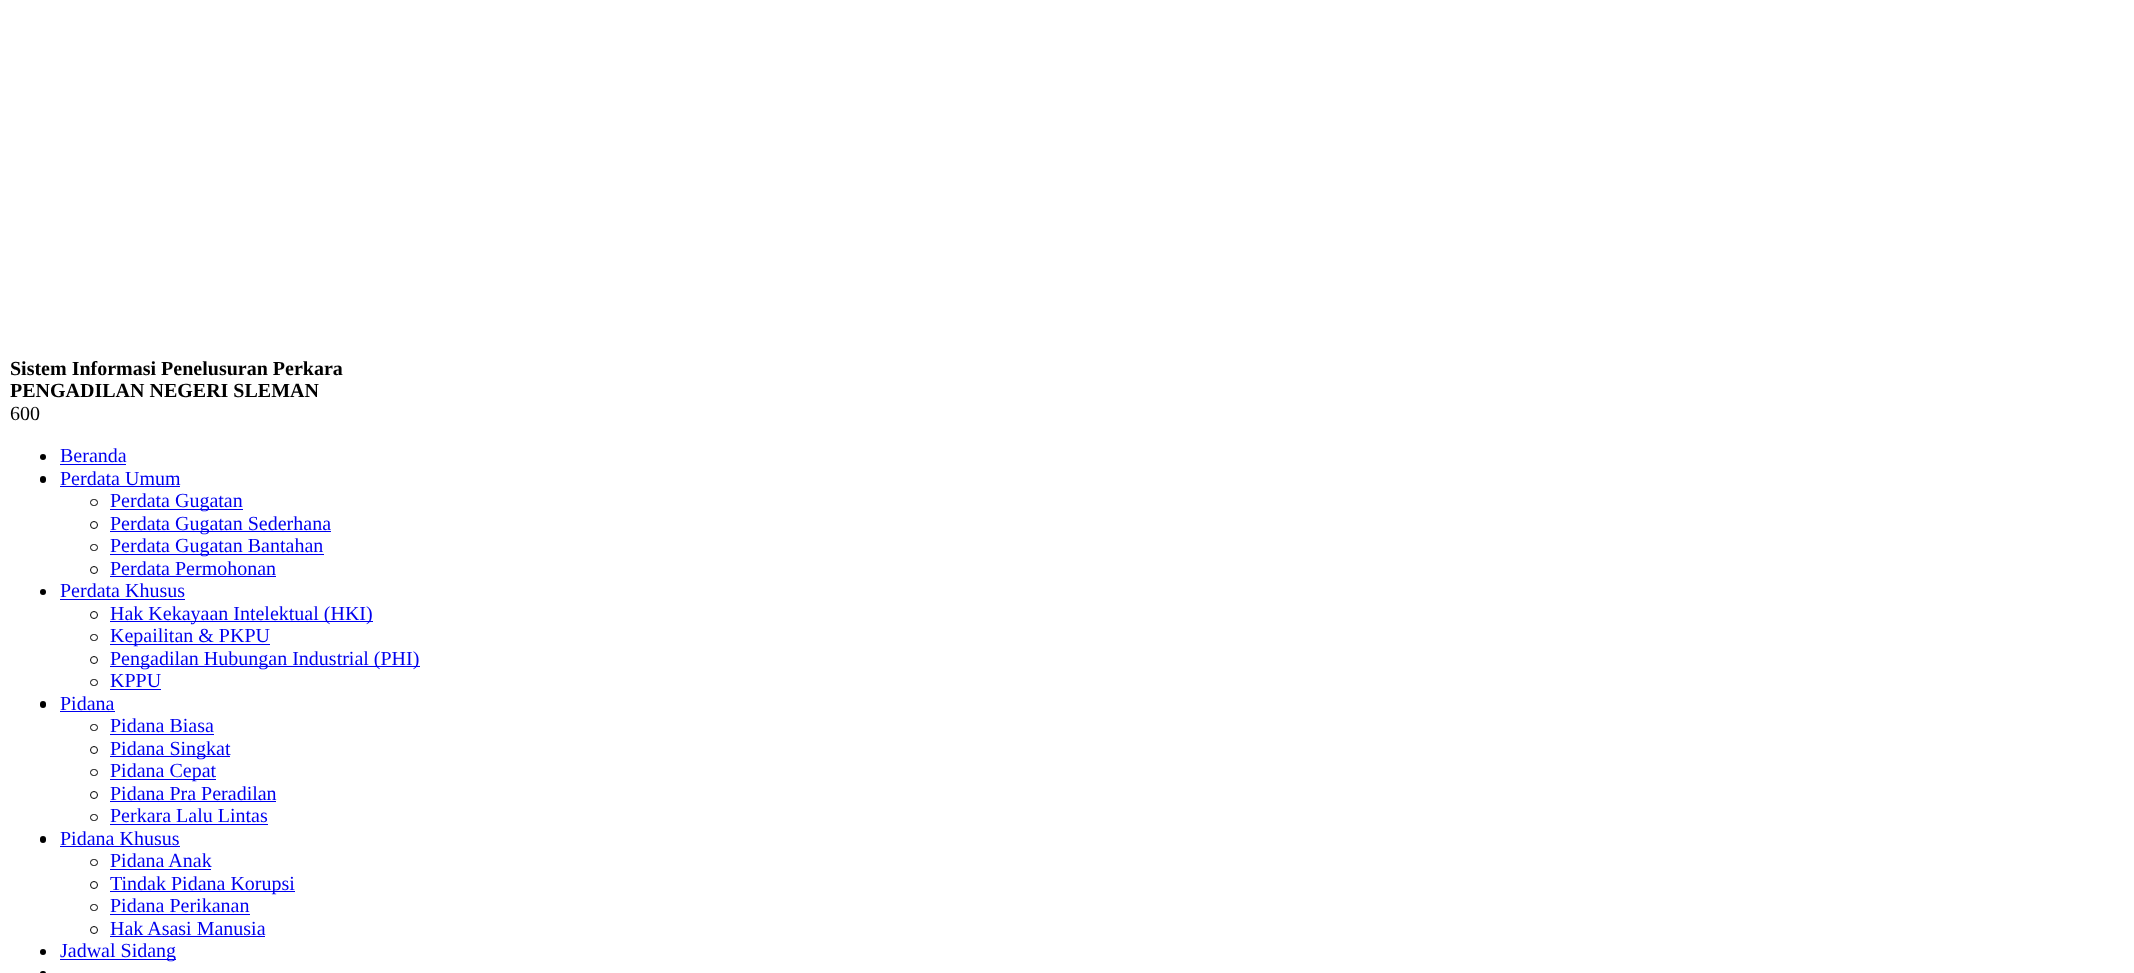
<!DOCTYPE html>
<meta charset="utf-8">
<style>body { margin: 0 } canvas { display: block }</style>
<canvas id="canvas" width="2134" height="973"></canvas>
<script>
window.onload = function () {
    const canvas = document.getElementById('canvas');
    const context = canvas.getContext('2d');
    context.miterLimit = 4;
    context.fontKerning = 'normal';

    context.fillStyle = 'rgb(255, 255, 255)';
    context.fillRect(0, 0, 2134, 973);
    context.fillStyle = 'rgb(0, 0, 0)';
    context.beginPath();
    context.arc(43, 457, 3, 0, 2 * Math.PI);
    context.fill();
    context.fillStyle = 'rgb(0, 0, 238)';
    context.fillRect(60, 464, 66, 1);
    context.fillStyle = 'rgb(0, 0, 0)';
    context.beginPath();
    context.roundRect(40, 476, 6, 7, 3);
    context.fill();
    context.fillStyle = 'rgb(0, 0, 238)';
    context.fillRect(60, 486, 120, 1);
    context.beginPath();
    context.roundRect(90.5, 499.5, 7, 6, 3);
    context.strokeStyle = 'rgb(0, 0, 0)';
    context.stroke();
    context.fillRect(110, 509, 133, 1);
    context.beginPath();
    context.arc(94, 525, 3.5, 0, 2 * Math.PI);
    context.stroke();
    context.fillRect(110, 531, 221, 1);
    context.beginPath();
    context.roundRect(90.5, 544.5, 7, 6, 3);
    context.stroke();
    context.fillRect(110, 554, 214, 1);
    context.beginPath();
    context.arc(94, 570, 3.5, 0, 2 * Math.PI);
    context.stroke();
    context.fillRect(110, 576, 166, 1);
    context.fillStyle = 'rgb(0, 0, 0)';
    context.beginPath();
    context.arc(43, 592, 3, 0, 2 * Math.PI);
    context.fill();
    context.fillStyle = 'rgb(0, 0, 238)';
    context.fillRect(60, 599, 125, 1);
    context.beginPath();
    context.arc(94, 615, 3.5, 0, 2 * Math.PI);
    context.stroke();
    context.fillRect(110, 621, 263, 1);
    context.beginPath();
    context.roundRect(90.5, 634.5, 7, 6, 3);
    context.stroke();
    context.fillRect(110, 644, 160, 1);
    context.beginPath();
    context.arc(94, 660, 3.5, 0, 2 * Math.PI);
    context.stroke();
    context.fillRect(110, 666, 310, 1);
    context.beginPath();
    context.roundRect(90.5, 679.5, 7, 6, 3);
    context.stroke();
    context.fillRect(110, 689, 51, 1);
    context.fillStyle = 'rgb(0, 0, 0)';
    context.beginPath();
    context.roundRect(40, 701, 6, 7, 3);
    context.fill();
    context.fillStyle = 'rgb(0, 0, 238)';
    context.fillRect(60, 711, 55, 1);
    context.beginPath();
    context.roundRect(90.5, 724.5, 7, 6, 3);
    context.stroke();
    context.fillRect(110, 734, 104, 1);
    context.beginPath();
    context.arc(94, 750, 3.5, 0, 2 * Math.PI);
    context.stroke();
    context.fillRect(110, 756, 120, 1);
    context.beginPath();
    context.roundRect(90.5, 769.5, 7, 6, 3);
    context.stroke();
    context.fillRect(110, 779, 106, 1);
    context.beginPath();
    context.arc(94, 795, 3.5, 0, 2 * Math.PI);
    context.stroke();
    context.fillRect(110, 801, 166, 1);
    context.beginPath();
    context.roundRect(90.5, 814.5, 7, 6, 3);
    context.stroke();
    context.fillRect(110, 824, 158, 1);
    context.fillStyle = 'rgb(0, 0, 0)';
    context.beginPath();
    context.roundRect(40, 836, 6, 7, 3);
    context.fill();
    context.fillStyle = 'rgb(0, 0, 238)';
    context.fillRect(60, 846, 120, 1);
    context.beginPath();
    context.roundRect(90.5, 859.5, 7, 6, 3);
    context.stroke();
    context.fillRect(110, 869, 101, 1);
    context.beginPath();
    context.arc(94, 885, 3.5, 0, 2 * Math.PI);
    context.stroke();
    context.fillRect(110, 891, 185, 1);
    context.beginPath();
    context.roundRect(90.5, 904.5, 7, 6, 3);
    context.stroke();
    context.fillRect(110, 914, 140, 1);
    context.beginPath();
    context.arc(94, 930, 3.5, 0, 2 * Math.PI);
    context.stroke();
    context.fillRect(110, 936, 155, 1);
    context.fillStyle = 'rgb(0, 0, 0)';
    context.beginPath();
    context.arc(43, 952, 3, 0, 2 * Math.PI);
    context.fill();
    context.fillStyle = 'rgb(0, 0, 238)';
    context.fillRect(60, 959, 116, 1);
    context.fillStyle = 'rgb(0, 0, 0)';
    context.beginPath();
    context.roundRect(40, 971, 6, 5, 3);
    context.fill();
    context.font = 'bold 20px Liberation Serif';
    context.fillText('Sistem Informasi Penelusuran Perkara', 10, 375);
    context.fillText('PENGADILAN NEGERI SLEMAN', 10, 397);
    context.font = '20px Liberation Serif';
    context.fillText('600', 10, 420);
    context.fillStyle = 'rgb(0, 0, 238)';
    context.fillText('Beranda', 60, 462);
    context.fillText('Perdata Umum', 60, 485);
    context.fillText('Perdata Gugatan', 110, 507);
    context.fillText('Perdata Gugatan Sederhana', 110, 530);
    context.fillText('Perdata Gugatan Bantahan', 110, 552);
    context.fillText('Perdata Permohonan', 110, 575);
    context.fillText('Perdata Khusus', 60, 597);
    context.fillText('Hak Kekayaan Intelektual (HKI)', 110, 620);
    context.fillText('Kepailitan & PKPU', 110, 642);
    context.fillText('Pengadilan Hubungan Industrial (PHI)', 110, 665);
    context.fillText('KPPU', 110, 687);
    context.fillText('Pidana', 60, 710);
    context.fillText('Pidana Biasa', 110, 732);
    context.fillText('Pidana Singkat', 110, 755);
    context.fillText('Pidana Cepat', 110, 777);
    context.fillText('Pidana Pra Peradilan', 110, 800);
    context.fillText('Perkara Lalu Lintas', 110, 822);
    context.fillText('Pidana Khusus', 60, 845);
    context.fillText('Pidana Anak', 110, 867);
    context.fillText('Tindak Pidana Korupsi', 110, 890);
    context.fillText('Pidana Perikanan', 110, 912);
    context.fillText('Hak Asasi Manusia', 110, 935);
    context.fillText('Jadwal Sidang', 60, 957);
};
</script>
